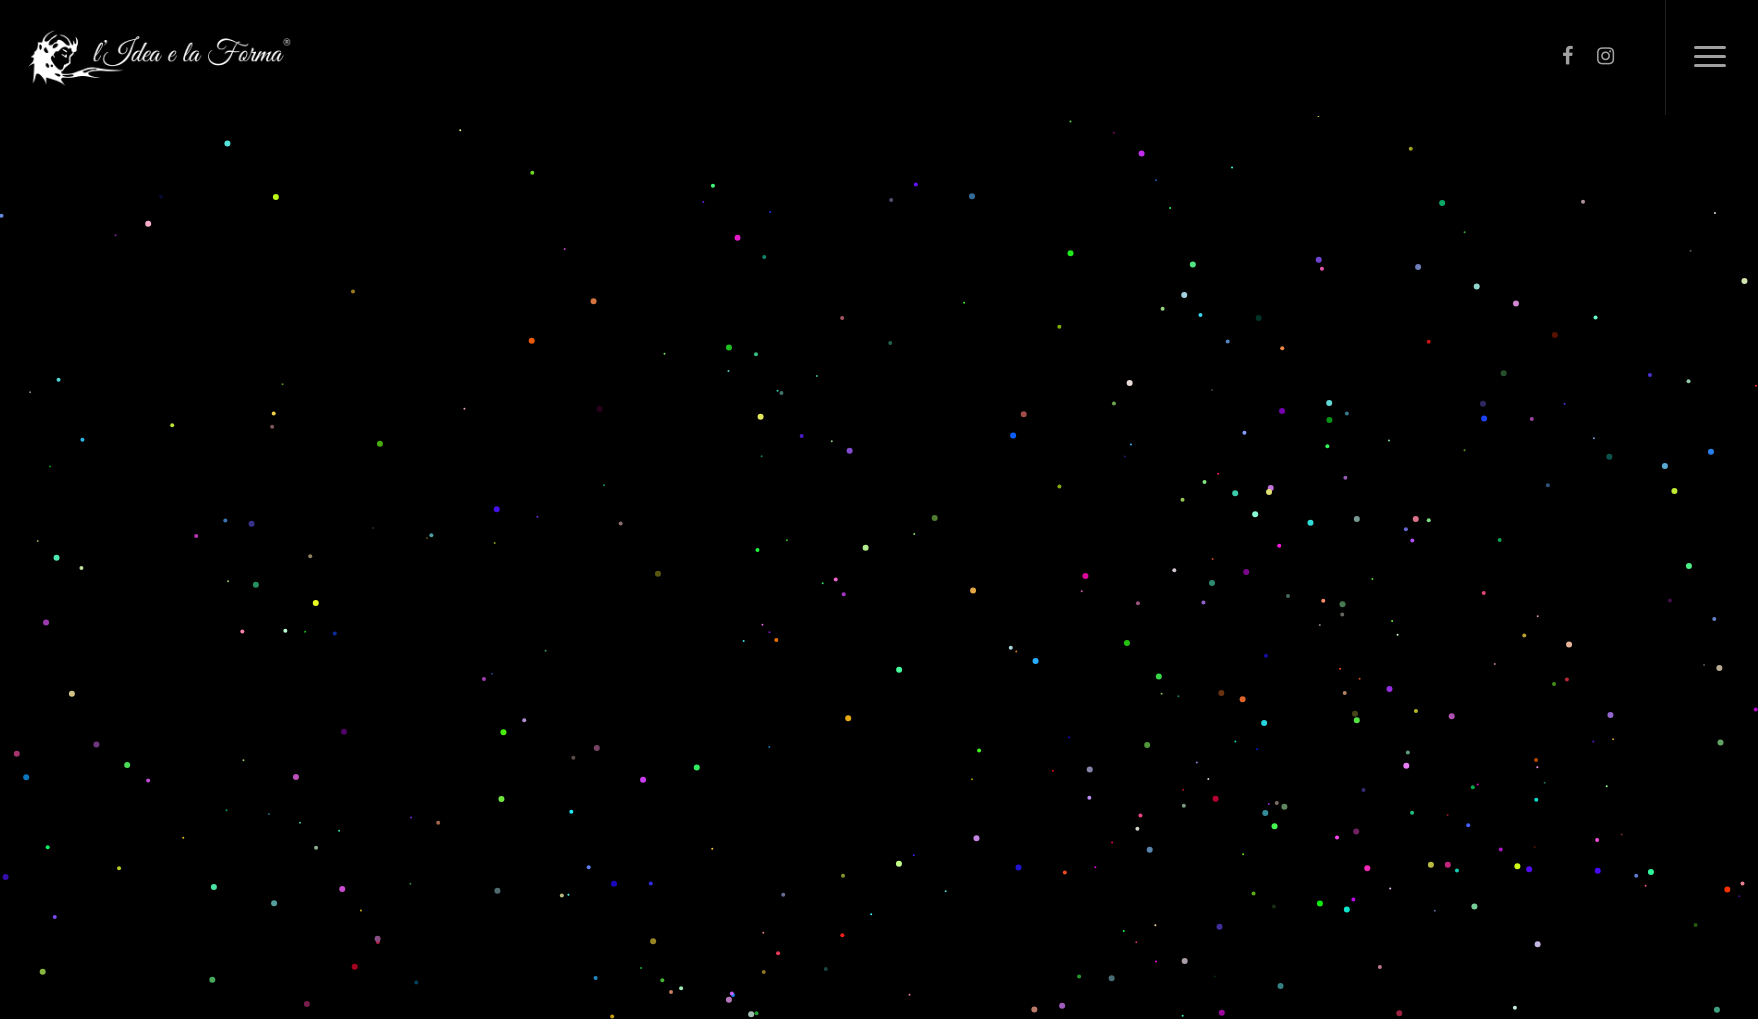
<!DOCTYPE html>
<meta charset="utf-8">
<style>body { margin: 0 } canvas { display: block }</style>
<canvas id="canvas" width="1758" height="1019"></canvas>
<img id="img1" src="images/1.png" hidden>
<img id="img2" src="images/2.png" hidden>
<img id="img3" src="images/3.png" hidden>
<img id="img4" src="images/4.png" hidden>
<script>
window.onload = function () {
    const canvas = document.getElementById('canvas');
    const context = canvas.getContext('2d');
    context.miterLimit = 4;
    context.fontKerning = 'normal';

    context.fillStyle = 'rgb(0, 0, 0)';
    context.fillRect(0, 0, 1758, 1019);
    context.drawImage(document.getElementById('img1'), 28, 30, 263, 56);
    context.drawImage(document.getElementById('img2'), 1563, 45, 10, 20);
    context.drawImage(document.getElementById('img3'), 1597, 47, 18, 18);
    context.fillStyle = 'rgb(33, 33, 33)';
    context.fillRect(1665, 0, 1, 115);
    context.fillStyle = 'rgb(160, 160, 160)';
    context.beginPath();
    context.roundRect(1694, 46, 32, 3, 1.5);
    context.fill();
    context.beginPath();
    context.roundRect(1694, 64, 32, 3, 1.5);
    context.fill();
    context.beginPath();
    context.roundRect(1694, 55, 32, 3, 1.5);
    context.fill();
    context.drawImage(document.getElementById('img4'), 0, 116, 1758, 903);
};
</script>
